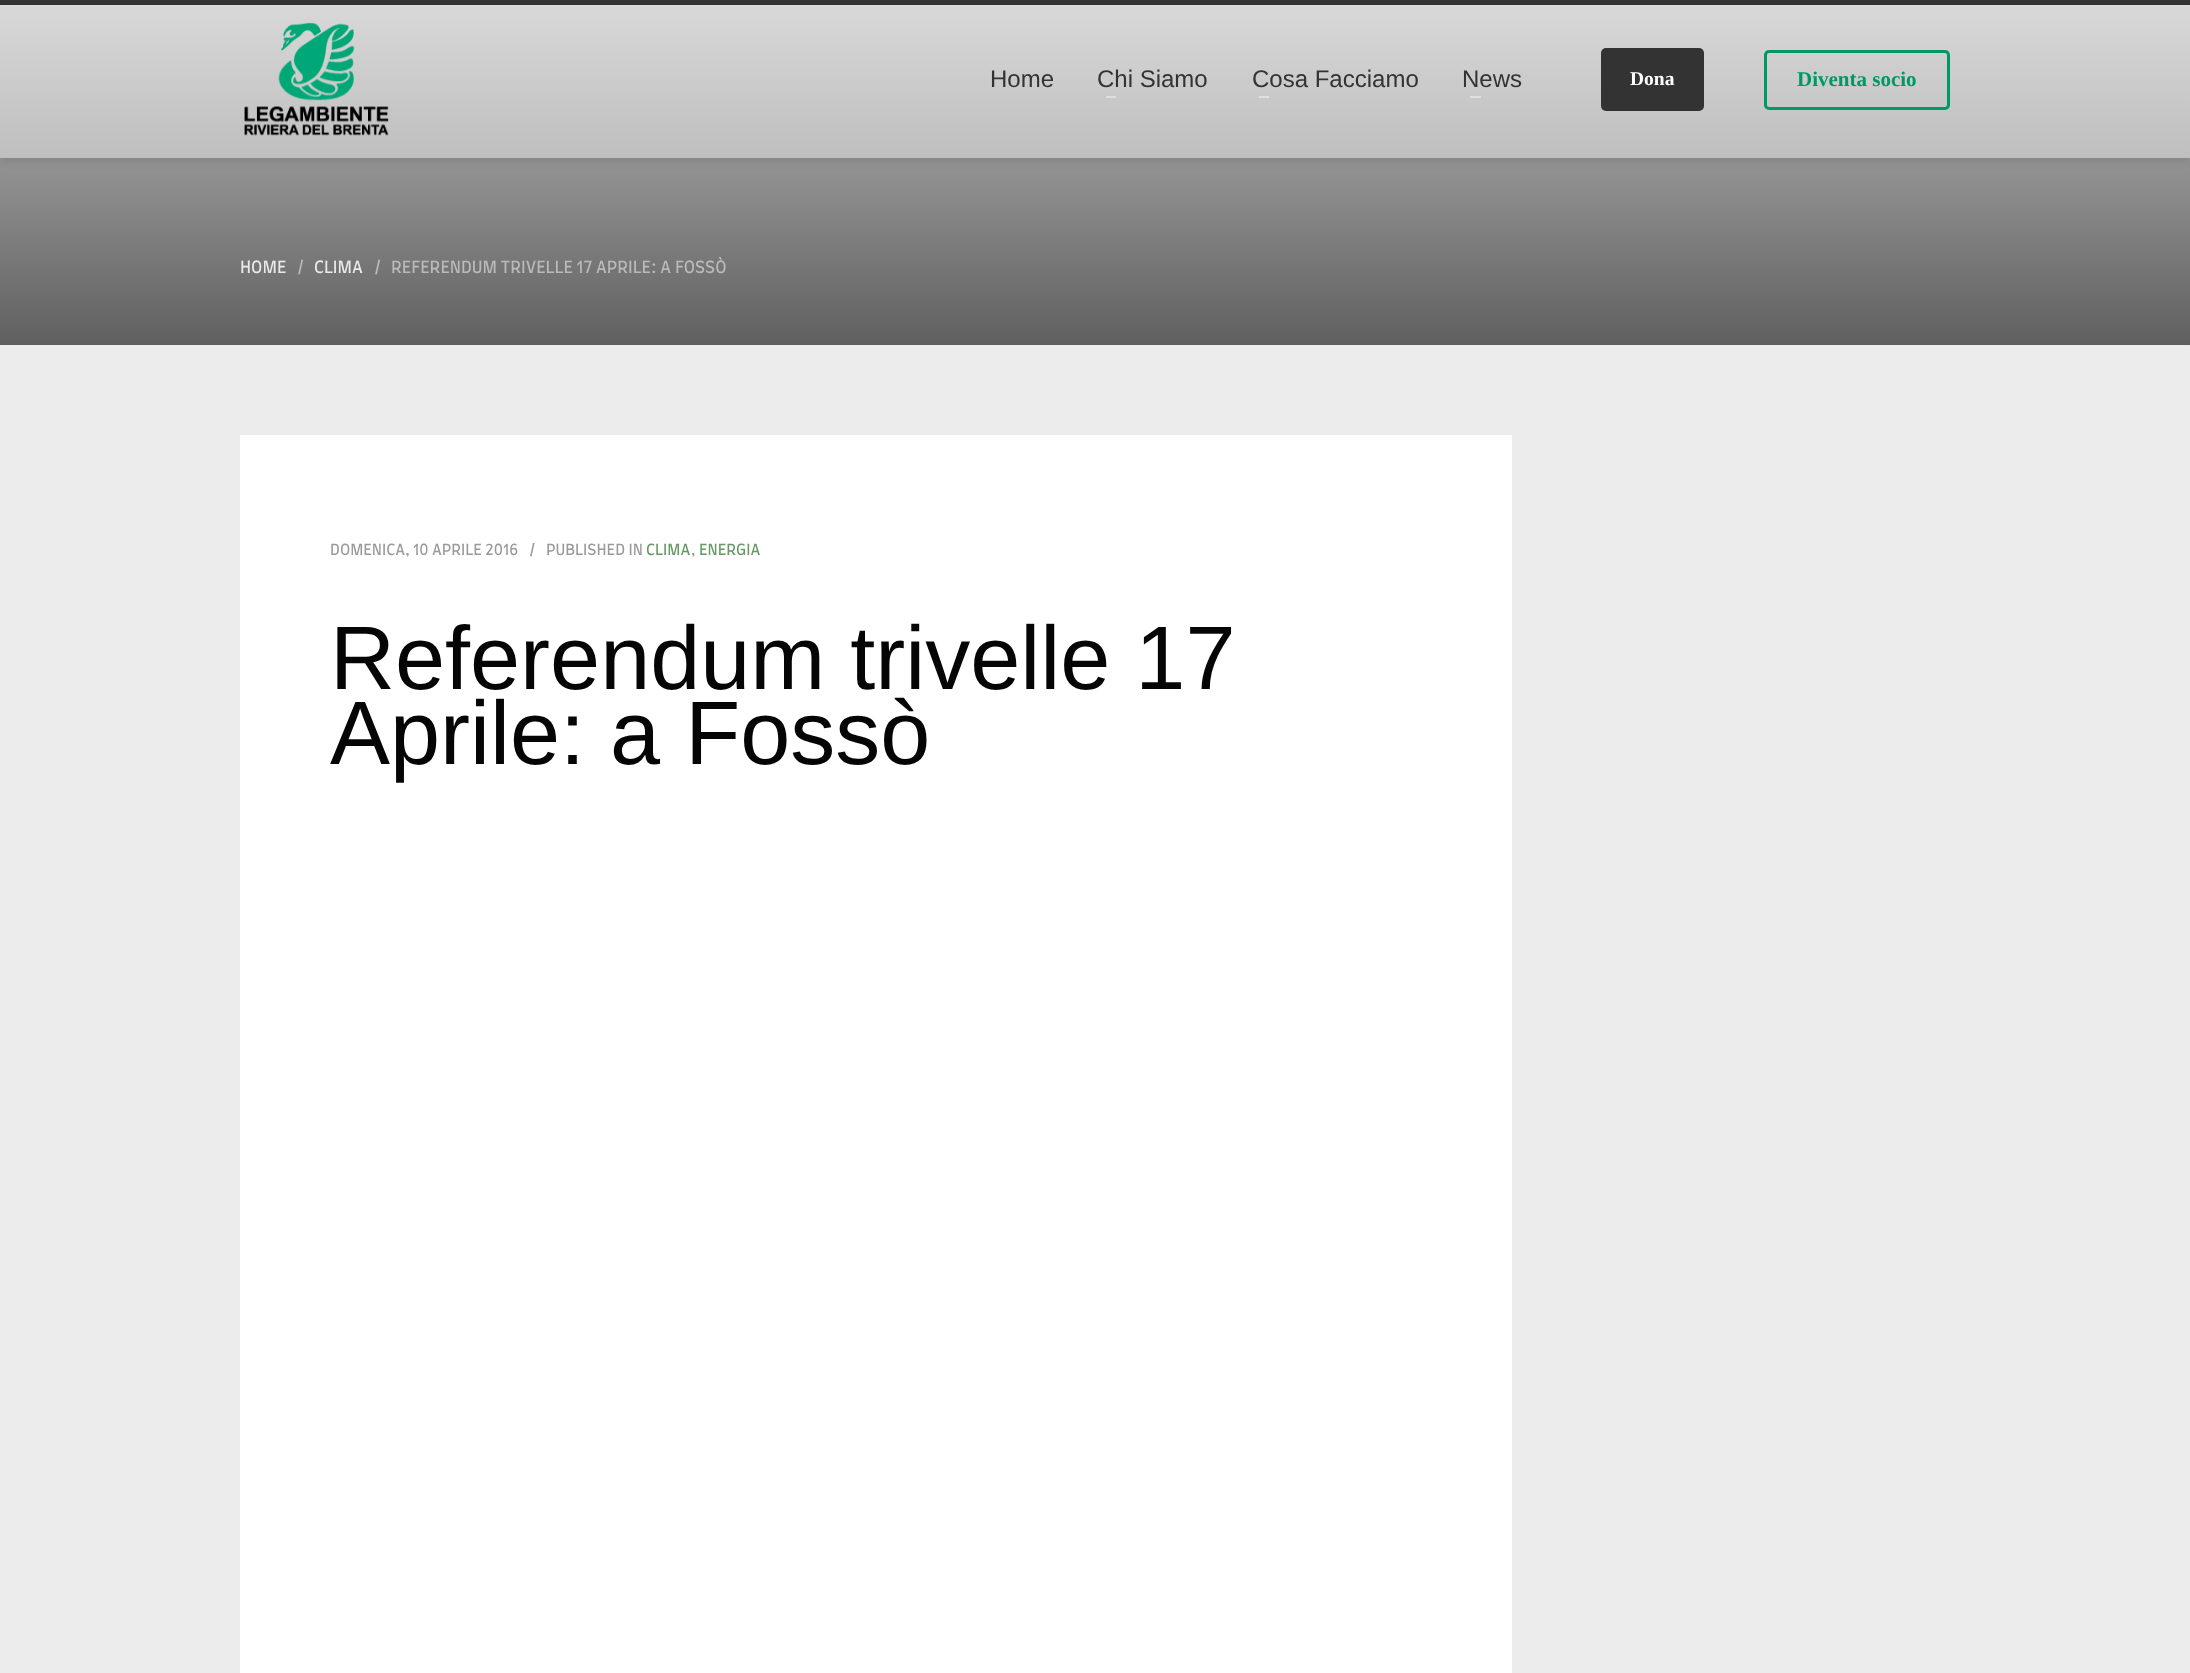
<!DOCTYPE html>
<meta charset="utf-8">
<style>body { margin: 0 } canvas { display: block }</style>
<canvas id="canvas" width="2190" height="1673"></canvas>
<img id="img1" src="images/1.png" hidden>
<script>
window.onload = function () {
    const canvas = document.getElementById('canvas');
    const context = canvas.getContext('2d');
    context.miterLimit = 4;
    context.fontKerning = 'normal';
    let gradient;

    context.fillStyle = 'rgb(236, 236, 236)';
    context.fillRect(0, 0, 2190, 1673);
    gradient = context.createLinearGradient(1095, 0, 1095, 345);
    gradient.addColorStop(0, 'rgb(192, 192, 192)');
    gradient.addColorStop(1, 'rgb(96, 96, 96)');
    context.fillStyle = gradient;
    context.fillRect(0, 5, 2190, 340);
    context.save();
    context.beginPath();
    context.moveTo(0, 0);
    context.lineTo(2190, 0);
    context.lineTo(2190, 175);
    context.lineTo(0, 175);
    context.closePath();
    context.moveTo(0, 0);
    context.lineTo(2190, 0);
    context.lineTo(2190, 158);
    context.lineTo(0, 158);
    context.closePath();
    context.clip('evenodd');
    context.fillStyle = 'rgba(0, 0, 0, 0.1)';
    context.filter = 'blur(4px)';
    context.beginPath();
    context.rect(0, 5, 2190, 157);
    context.fill();
    context.filter = 'none';
    context.restore();
    context.fillStyle = 'rgba(255, 255, 255, 0.4)';
    context.fillRect(0, 5, 2190, 153);
    context.fillStyle = 'rgb(51, 51, 51)';
    context.fillRect(0, 0, 2190, 5);
    context.drawImage(document.getElementById('img1'), 244, 22, 145, 114);
    context.fillStyle = 'rgb(223, 223, 223)';
    context.fillRect(1106, 96, 10, 2);
    context.fillRect(1259, 96, 10, 2);
    context.fillRect(1470, 96, 11, 2);
    context.fillStyle = 'rgb(51, 51, 51)';
    context.beginPath();
    context.roundRect(1601, 48, 103, 63, 5);
    context.fill();
    context.beginPath();
    context.roundRect(1765.5, 51.5, 183, 57, 3.5);
    context.strokeStyle = 'rgb(0, 153, 102)';
    context.lineWidth = 3;
    context.stroke();
    context.fillStyle = 'rgb(255, 255, 255)';
    context.fillRect(240, 435, 1272, 1238);
    context.font = '24px Liberation Sans';
    context.fillStyle = 'rgb(51, 51, 51)';
    context.fillText('Home', 990, 87);
    context.fillText('Chi Siamo', 1097, 87);
    context.fillText('Cosa Facciamo', 1252, 87);
    context.fillText('News', 1462, 87);
    context.font = 'bold 19.5px Liberation Serif';
    context.fillStyle = 'rgb(255, 255, 255)';
    context.fillText('Dona', 1630, 85);
    context.font = 'bold 21px Liberation Serif';
    context.fillStyle = 'rgb(0, 153, 102)';
    context.fillText('Diventa socio', 1797, 86);
    context.font = '16.5px Farro';
    context.fillStyle = 'rgb(234, 234, 234)';
    context.fillText('HOME', 240, 273);
    context.fillStyle = 'rgb(186, 186, 186)';
    context.fillText('/', 297, 273);
    context.fillStyle = 'rgb(234, 234, 234)';
    context.fillText('CLIMA', 314, 273);
    context.fillStyle = 'rgb(186, 186, 186)';
    context.fillText('/', 374, 273);
    context.fillText('REFERENDUM TRIVELLE 17 APRILE: A FOSSÒ', 391, 273);
    context.font = '15px Farro';
    context.fillStyle = 'rgb(154, 154, 154)';
    context.fillText('DOMENICA, 10 APRILE 2016', 330, 555);
    context.fillText('/', 529, 555);
    context.fillText('PUBLISHED IN', 546, 555);
    context.fillStyle = 'rgb(102, 153, 102)';
    context.fillText('CLIMA', 646, 555);
    context.fillStyle = 'rgb(154, 154, 154)';
    context.fillText(',', 691, 555);
    context.fillStyle = 'rgb(102, 153, 102)';
    context.fillText('ENERGIA', 699, 555);
    context.font = '90px Liberation Sans';
    context.fillStyle = 'rgb(5, 5, 5)';
    context.fillText('Referendum trivelle 17', 330, 689);
    context.fillText('Aprile: a Fossò', 330, 764);
};
</script>
